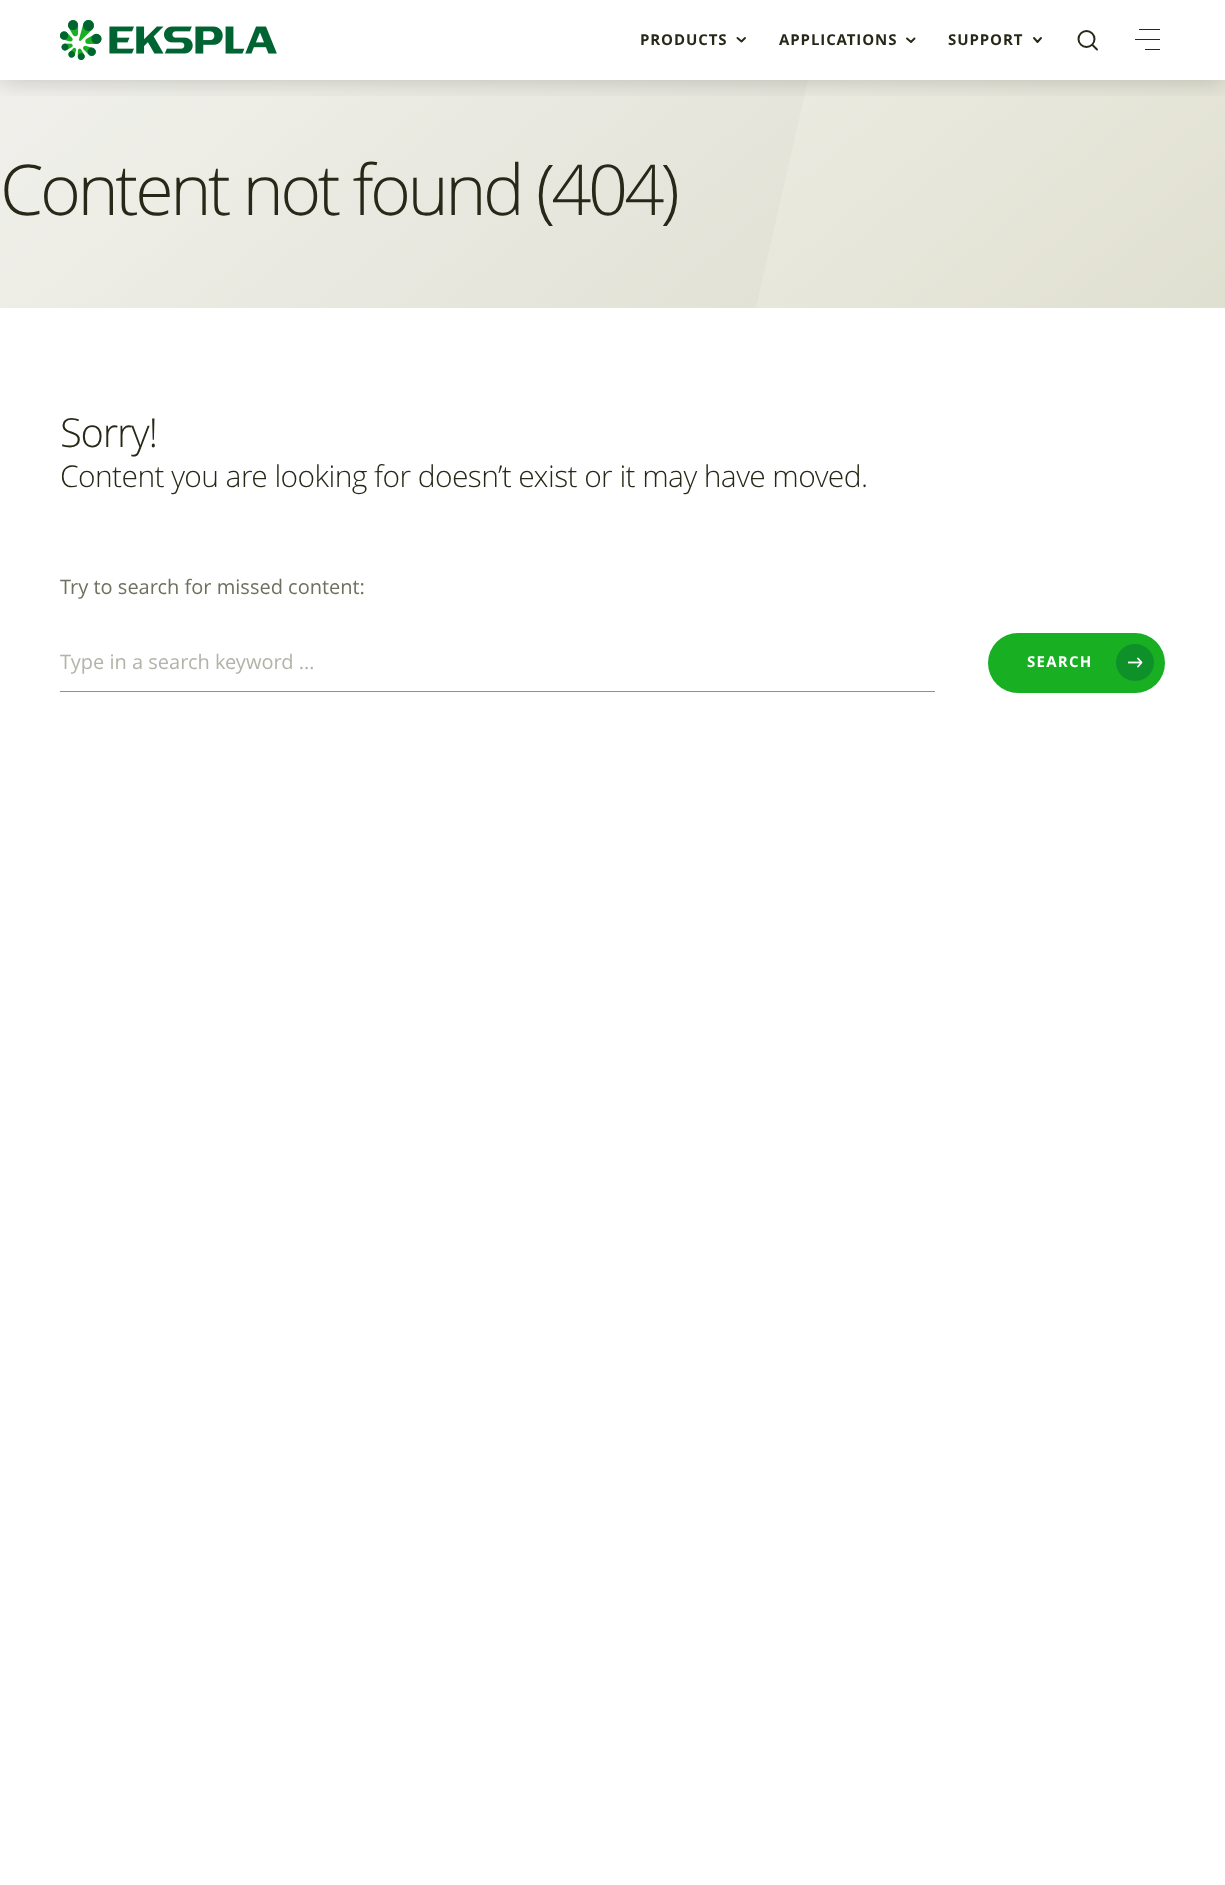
<!DOCTYPE html>
<meta charset="utf-8">
<style>body { margin: 0 } canvas { display: block }</style>
<canvas id="canvas" width="1225" height="1885"></canvas>
<img id="img1" src="images/1.png" hidden>
<script>
window.onload = function () {
    const canvas = document.getElementById('canvas');
    const context = canvas.getContext('2d');
    context.miterLimit = 4;
    context.fontKerning = 'normal';
    let gradient;

    context.fillStyle = 'rgb(255, 255, 255)';
    context.fillRect(0, 0, 1225, 1885);
    gradient = context.createLinearGradient(303, -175, 922, 562);
    gradient.addColorStop(0, 'rgb(247, 246, 242)');
    gradient.addColorStop(1, 'rgb(224, 224, 209)');
    context.fillStyle = gradient;
    context.fillRect(0, 80, 1225, 228);
    context.save();
    context.beginPath();
    context.rect(0, 80, 858, 228);
    context.clip();
    context.fillStyle = 'rgba(180, 180, 162, 0.08)';
    context.beginPath();
    context.moveTo(0, -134);
    context.lineTo(857, -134);
    context.lineTo(707, 522);
    context.lineTo(0, 522);
    context.closePath();
    context.fill('evenodd');
    context.restore();
    context.save();
    context.beginPath();
    context.rect(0, 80, 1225, 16);
    context.clip();
    context.fillStyle = 'rgba(0, 0, 0, 0.2)';
    context.filter = 'blur(12.5px)';
    context.beginPath();
    context.rect(0, 0, 1225, 80);
    context.fill();
    context.filter = 'none';
    context.restore();
    context.drawImage(document.getElementById('img1'), 60, 20, 217, 40);
    context.beginPath();
    context.moveTo(737.5, 38);
    context.lineTo(741.5, 41.5);
    context.lineTo(745, 38);
    context.strokeStyle = 'rgb(40, 40, 25)';
    context.lineWidth = 1.9;
    context.lineCap = 'round';
    context.lineJoin = 'round';
    context.stroke();
    context.beginPath();
    context.moveTo(907, 38.5);
    context.lineTo(911, 42);
    context.lineTo(914.5, 38.5);
    context.stroke();
    context.beginPath();
    context.moveTo(1034, 38);
    context.lineTo(1037.5, 42);
    context.lineTo(1041, 38);
    context.stroke();
    context.beginPath();
    context.moveTo(1092.5, 45);
    context.lineTo(1097, 49.5);
    context.lineJoin = 'miter';
    context.stroke();
    context.beginPath();
    context.arc(1086.5, 39, 8, 0, 2 * Math.PI);
    context.lineWidth = 2;
    context.stroke();
    context.fillStyle = 'rgb(40, 40, 25)';
    context.fillRect(1135, 39, 25, 1);
    context.fillRect(1139, 29, 21, 1);
    context.fillRect(1145, 49, 15, 1);
    context.fillStyle = 'rgb(146, 146, 131)';
    context.fillRect(60, 691, 875, 1);
    context.fillStyle = 'rgb(25, 175, 35)';
    context.beginPath();
    context.roundRect(988, 633, 177, 60, 30);
    context.fill();
    context.fillStyle = 'rgb(15, 145, 41)';
    context.beginPath();
    context.roundRect(1116, 644, 38, 37, 18.5);
    context.fill();
    context.save();
    context.beginPath();
    context.rect(1128, 655, 15, 15);
    context.clip();
    context.beginPath();
    context.moveTo(1127.5, 662.5);
    context.lineTo(1141.5, 662.5);
    context.strokeStyle = 'rgb(255, 255, 255)';
    context.lineWidth = 1.8;
    context.lineCap = 'butt';
    context.stroke();
    context.restore();
    context.beginPath();
    context.moveTo(1138, 666.5);
    context.lineTo(1141.5, 662.5);
    context.lineTo(1138, 658.5);
    context.strokeStyle = 'rgb(255, 255, 255)';
    context.lineWidth = 1.8;
    context.lineJoin = 'round';
    context.stroke();
    context.letterSpacing = '0.9px';
    context.font = 'bold 15px Open Sans';
    context.fillStyle = 'rgb(40, 40, 25)';
    context.fillText('PRODUCTS', 640, 45);
    context.fillText('APPLICATIONS', 779, 45);
    context.fillText('SUPPORT', 948, 45);
    context.letterSpacing = '-3.5px';
    context.font = '300 70px Open Sans';
    context.fillText('Content not found (404)', 0, 215);
    context.letterSpacing = '-1.25px';
    context.font = '300 40px Open Sans';
    context.fillText('Sorry!', 60, 447);
    context.letterSpacing = '-0.6px';
    context.font = '300 30px Open Sans';
    context.fillText('Content you are looking for doesn’t exist or it may have moved.', 60, 487);
    context.letterSpacing = '0px';
    context.font = '20px Open Sans';
    context.fillStyle = 'rgb(112, 112, 95)';
    context.fillText('Try to search for missed content:', 60, 594);
    context.fillStyle = 'rgb(179, 179, 168)';
    context.fillText('Type in a search keyword …', 60, 669);
    context.letterSpacing = '1.25px';
    context.font = 'bold 15px Open Sans';
    context.fillStyle = 'rgb(255, 255, 255)';
    context.fillText('SEARCH', 1027, 667);
};
</script>
